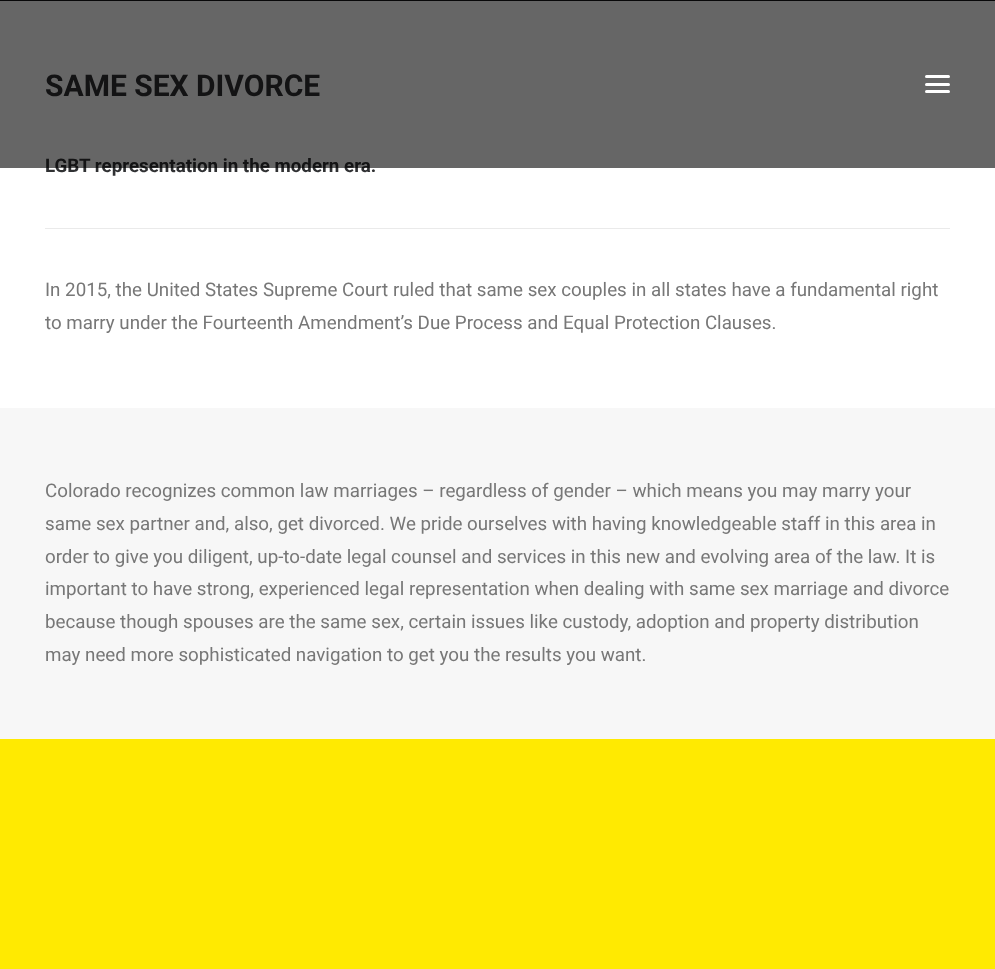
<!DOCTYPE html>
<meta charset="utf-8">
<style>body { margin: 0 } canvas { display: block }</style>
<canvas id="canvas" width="995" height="969"></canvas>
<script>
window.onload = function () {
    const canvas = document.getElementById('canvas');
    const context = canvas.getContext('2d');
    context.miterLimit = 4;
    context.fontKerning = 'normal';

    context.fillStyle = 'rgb(20, 22, 24)';
    context.fillRect(0, 0, 995, 969);
    context.fillStyle = 'rgb(255, 255, 255)';
    context.fillRect(0, 1, 995, 407);
    context.fillStyle = 'rgb(234, 234, 234)';
    context.fillRect(45, 228, 905, 1);
    context.fillStyle = 'rgb(247, 247, 247)';
    context.fillRect(0, 408, 995, 331);
    context.fillStyle = 'rgb(255, 234, 1)';
    context.fillRect(0, 739, 995, 230);
    context.font = 'bold 30px Roboto';
    context.fillStyle = 'rgb(48, 49, 51)';
    context.fillText('SAME SEX DIVORCE', 45, 96);
    context.font = 'bold 18.75px Roboto';
    context.fillText('LGBT representation in the modern era.', 45, 172);
    context.fillStyle = 'rgba(0, 0, 0, 0.6)';
    context.fillRect(0, 0, 995, 168);
    context.fillStyle = 'rgb(255, 255, 255)';
    context.beginPath();
    context.roundRect(925, 75, 25, 3, 1.5);
    context.fill();
    context.beginPath();
    context.roundRect(925, 90, 25, 3, 1.5);
    context.fill();
    context.beginPath();
    context.roundRect(925, 83, 25, 3, 1.5);
    context.fill();
    context.font = '18.75px Roboto';
    context.fillStyle = 'rgb(119, 119, 119)';
    context.fillText('In 2015, the United States Supreme Court ruled that same sex couples in all states have a fundamental right', 45, 296);
    context.fillText('to marry under the Fourteenth Amendment’s Due Process and Equal Protection Clauses.', 45, 329);
    context.fillText('Colorado recognizes common law marriages – regardless of gender – which means you may marry your', 45, 497);
    context.fillText('same sex partner and, also, get divorced. We pride ourselves with having knowledgeable staff in this area in', 45, 530);
    context.fillText('order to give you diligent, up-to-date legal counsel and services in this new and evolving area of the law. It is', 45, 563);
    context.fillText('important to have strong, experienced legal representation when dealing with same sex marriage and divorce', 45, 595);
    context.fillText('because though spouses are the same sex, certain issues like custody, adoption and property distribution', 45, 628);
    context.fillText('may need more sophisticated navigation to get you the results you want.', 45, 661);
};
</script>
